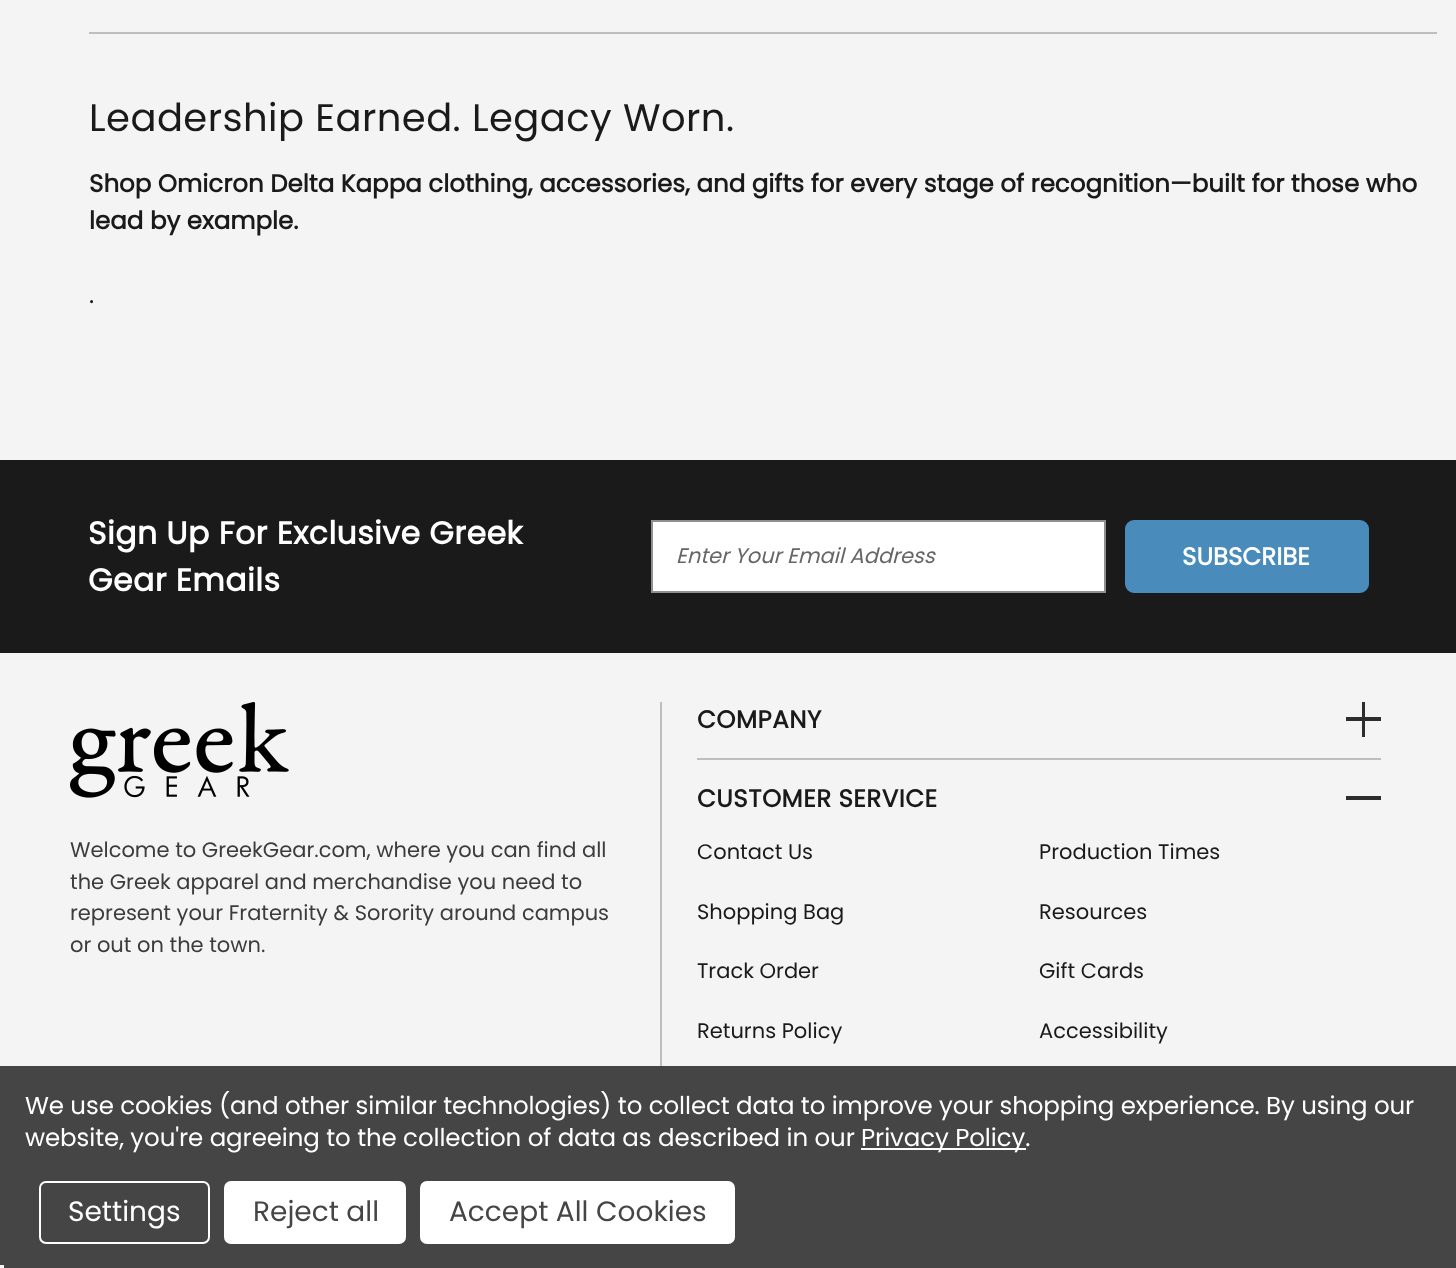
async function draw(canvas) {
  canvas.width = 1456;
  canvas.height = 1268;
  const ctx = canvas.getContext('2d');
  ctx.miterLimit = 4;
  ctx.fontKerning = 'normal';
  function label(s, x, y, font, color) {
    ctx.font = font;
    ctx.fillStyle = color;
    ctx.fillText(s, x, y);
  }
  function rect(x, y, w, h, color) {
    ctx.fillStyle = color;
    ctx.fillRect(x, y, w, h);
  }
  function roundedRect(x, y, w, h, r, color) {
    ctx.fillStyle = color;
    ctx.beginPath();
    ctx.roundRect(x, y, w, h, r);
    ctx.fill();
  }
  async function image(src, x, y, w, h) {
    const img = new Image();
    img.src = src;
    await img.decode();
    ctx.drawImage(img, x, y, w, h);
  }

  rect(0, 0, 1456, 1268, '#f4f4f4');
  rect(89, 32, 1348, 2, '#bebebe');
  ctx.letterSpacing = '0.45px';
  label('Leadership Earned. Legacy Worn.', 89, 131, '38.5px Poppins', '#1a1a1a');
  ctx.letterSpacing = '0px';
  label('Shop Omicron Delta Kappa clothing, accessories, and gifts for every stage of recognition—built for those who', 89, 192, 'bold 24.5px Poppins', '#1a1a1a');
  label('lead by example.', 89, 229, 'bold 24.5px Poppins', '#1a1a1a');
  label('.', 89, 303, '24.5px Poppins', '#1a1a1a');
  rect(0, 460, 1456, 193, '#1a1a1a');
  ctx.letterSpacing = '0.45px';
  label('Sign Up For Exclusive Greek', 88, 544, 'bold 31.5px Poppins', '#fff');
  label('Gear Emails', 88, 591, 'bold 31.5px Poppins', '#fff');
  ctx.beginPath();
  ctx.rect(652, 521, 453, 71);
  ctx.fill();
  ctx.strokeStyle = '#8f8f8f';
  ctx.lineWidth = 2;
  ctx.stroke();
  ctx.letterSpacing = '0px';
  label('Enter Your Email Address', 676, 563, 'italic 21px Poppins', '#666');
  ctx.fillStyle = '#498cbc';
  ctx.beginPath();
  ctx.roundRect(1126, 521, 242, 71, 8);
  ctx.fill();
  ctx.strokeStyle = '#498cbc';
  ctx.stroke();
  label('SUBSCRIBE', 1182, 565, 'bold 24.5px Poppins', '#fff');
  rect(697, 758, 684, 2, '#bebebe');
  ctx.letterSpacing = '0.45px';
  label('COMPANY', 697, 728, 'bold 24.5px Poppins', '#1a1a1a');
  rect(1362, 702, 3, 35, '#2d2d2d');
  rect(1346, 717, 35, 4, '#2d2d2d');
  rect(660, 702, 2, 364, '#bebebe');
  await image('assets/img1.png', 70, 702, 219, 96);
  ctx.letterSpacing = '0px';
  label('Welcome to GreekGear.com, where you can find all', 70, 857, '21px Poppins', '#3c3c3c');
  label('the Greek apparel and merchandise you need to', 70, 889, '21px Poppins', '#3c3c3c');
  label('represent your Fraternity & Sorority around campus', 70, 920, '21px Poppins', '#3c3c3c');
  label('or out on the town.', 70, 952, '21px Poppins', '#3c3c3c');
  ctx.letterSpacing = '0.45px';
  label('CUSTOMER SERVICE', 697, 807, 'bold 24.5px Poppins', '#1a1a1a');
  rect(1346, 796, 35, 4, '#2d2d2d');
  ctx.letterSpacing = '0px';
  label('Contact Us', 697, 859, '21px Poppins', '#1a1a1a');
  label('Shopping Bag', 697, 919, '21px Poppins', '#1a1a1a');
  label('Track Order', 697, 978, '21px Poppins', '#1a1a1a');
  label('Returns Policy', 697, 1038, '21px Poppins', '#1a1a1a');
  label('Production Times', 1039, 859, '21px Poppins', '#1a1a1a');
  label('Resources', 1039, 919, '21px Poppins', '#1a1a1a');
  label('Gift Cards', 1039, 978, '21px Poppins', '#1a1a1a');
  label('Accessibility', 1039, 1038, '21px Poppins', '#1a1a1a');
  rect(0, 1066, 1456, 202, '#454545');
  ctx.letterSpacing = '-0.09px';
  label('We use cookies (and other similar technologies) to collect data to improve your shopping experience. By using our', 25, 1114, '24.5px Poppins', '#fff');
  label('website, you\'re agreeing to the collection of data as described in our', 25, 1146, '24.5px Poppins', '#fff');
  rect(861, 1148, 165, 2, '#fff');
  label('Privacy Policy.', 861, 1146, '24.5px Poppins', '#fff');
  ctx.beginPath();
  ctx.roundRect(40, 1182, 169, 61, 6);
  ctx.strokeStyle = '#fff';
  ctx.stroke();
  ctx.letterSpacing = '0px';
  label('Settings', 68, 1221, '28px Poppins', '#fff');
  roundedRect(224, 1181, 182, 63, 7, '#fff');
  label('Reject all', 253, 1221, '28px Poppins', '#454545');
  roundedRect(420, 1181, 315, 63, 7, '#fff');
  label('Accept All Cookies', 449, 1221, '28px Poppins', '#454545');
  rect(0, 1265, 4, 3, '#f5f5f5');
}

draw(document.querySelector('canvas'));
